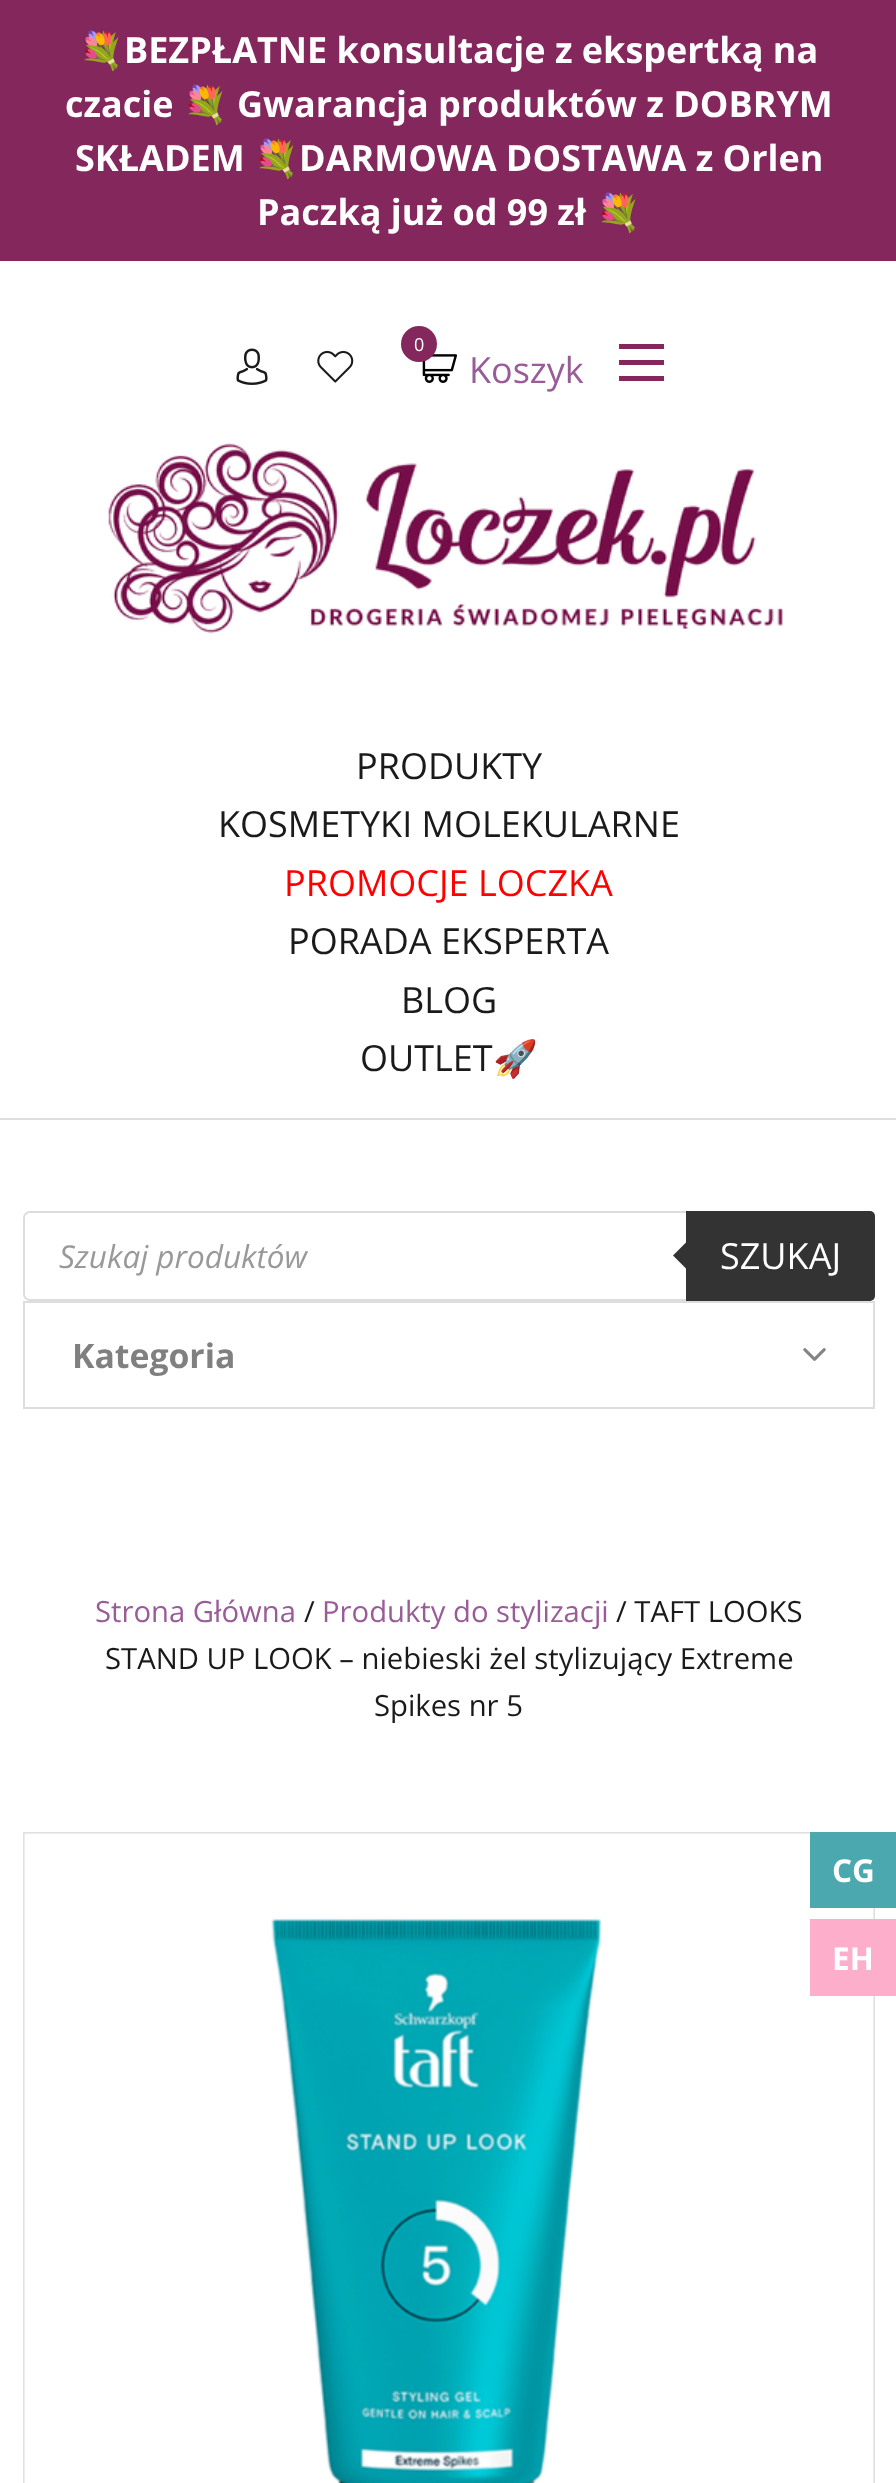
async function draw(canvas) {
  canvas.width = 896;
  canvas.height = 2483;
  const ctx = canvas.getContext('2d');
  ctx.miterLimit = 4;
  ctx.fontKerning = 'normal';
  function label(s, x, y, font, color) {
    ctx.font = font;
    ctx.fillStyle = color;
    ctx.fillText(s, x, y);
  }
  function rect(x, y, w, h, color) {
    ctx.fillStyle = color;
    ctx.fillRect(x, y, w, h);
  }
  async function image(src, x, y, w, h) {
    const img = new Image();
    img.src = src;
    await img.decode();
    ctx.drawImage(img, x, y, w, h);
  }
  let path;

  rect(0, 0, 896, 2483, '#fff');
  rect(0, 0, 896, 261, '#83275c');
  label('💐', 79, 63, 'bold 36px Noto Color Emoji', '#fff');
  label('BEZPŁATNE konsultacje z ekspertką na', 124, 63, 'bold 36px Open Sans', '#fff');
  label('czacie', 65, 117, 'bold 36px Open Sans', '#fff');
  label('💐', 183, 117, 'bold 36px Noto Color Emoji', '#fff');
  label('Gwarancja produktów z DOBRYM', 237, 117, 'bold 36px Open Sans', '#fff');
  label('SKŁADEM', 75, 171, 'bold 36px Open Sans', '#fff');
  label('💐', 254, 171, 'bold 36px Noto Color Emoji', '#fff');
  label('DARMOWA DOSTAWA z Orlen', 299, 171, 'bold 36px Open Sans', '#fff');
  label('Paczką już od 99 zł', 257, 225, 'bold 36px Open Sans', '#fff');
  label('💐', 596, 225, 'bold 36px Noto Color Emoji', '#fff');
  await image('assets/img1.png', 236, 348, 32, 37);
  await image('assets/img2.png', 317, 350, 37, 33);
  await image('assets/img3.png', 422, 354, 35, 29);
  ctx.fillStyle = '#83275c';
  ctx.beginPath();
  ctx.arc(419, 344, 18, 0, 2 * Math.PI);
  ctx.fill();
  label('0', 414, 351, '18px Open Sans', '#fff');
  label('Koszyk', 469, 383, '36px Open Sans', '#995c98');
  rect(619, 376, 45, 5, '#83275c');
  rect(619, 360, 45, 5, '#83275c');
  rect(619, 344, 45, 5, '#83275c');
  await image('assets/img4.png', 108, 443, 675, 191);
  rect(0, 1118, 896, 2, '#ddd');
  label('PRODUKTY', 356, 779, '36px Open Sans', '#1a1a1a');
  label('KOSMETYKI MOLEKULARNE', 218, 837, '36px Open Sans', '#1a1a1a');
  label('PROMOCJE LOCZKA', 284, 896, '36px Open Sans', '#f00');
  label('PORADA EKSPERTA', 288, 954, '36px Open Sans', '#1a1a1a');
  label('BLOG', 401, 1013, '36px Open Sans', '#1a1a1a');
  label('OUTLET', 360, 1071, '36px Open Sans', '#1a1a1a');
  label('🚀', 493, 1071, '36px Noto Color Emoji', '#1a1a1a');
  ctx.beginPath();
  ctx.roundRect(24, 1212, 850, 88, 6);
  ctx.strokeStyle = '#ddd';
  ctx.lineWidth = 2;
  ctx.stroke();
  label('Szukaj produktów', 59, 1268, 'italic 31.5px Open Sans', '#999');
  ctx.fillStyle = '#333';
  ctx.beginPath();
  ctx.roundRect(686, 1211, 189, 90, [0, 5, 5, 0]);
  ctx.fill();
  path = new Path2D('M691 1237.5V1273.5L673 1255.5Z');
  ctx.fill(path);
  label('SZUKAJ', 720, 1269, '36px Open Sans', '#fff');
  await image('assets/img5.png', 803, 1348, 23, 13);
  ctx.strokeRect(24, 1302, 850, 106);
  label('Kategoria', 72, 1368, 'bold 33.75px Open Sans', '#808080');
  label('Strona Główna', 95, 1622, '29.25px Open Sans', '#995c98');
  label('/', 304, 1622, '29.25px Open Sans', '#1a1a1a');
  label('Produkty do stylizacji', 322, 1622, '29.25px Open Sans', '#995c98');
  label('/ TAFT LOOKS', 616, 1622, '29.25px Open Sans', '#1a1a1a');
  label('STAND UP LOOK – niebieski żel stylizujący Extreme', 105, 1669, '29.25px Open Sans', '#1a1a1a');
  label('Spikes nr 5', 374, 1716, '29.25px Open Sans', '#1a1a1a');
  ctx.strokeStyle = '#e1e1e1';
  ctx.strokeRect(24, 1833, 850, 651);
  await image('assets/img6.png', 24, 1833, 850, 650);
  rect(810, 1832, 86, 76, '#4ca8af');
  label('CG', 832, 1882, 'bold 31.5px Open Sans', '#fff');
  rect(810, 1919, 86, 77, '#fdaecb');
  label('EH', 832, 1970, 'bold 31.5px Open Sans', '#fff');
}

draw(document.querySelector('canvas'));
